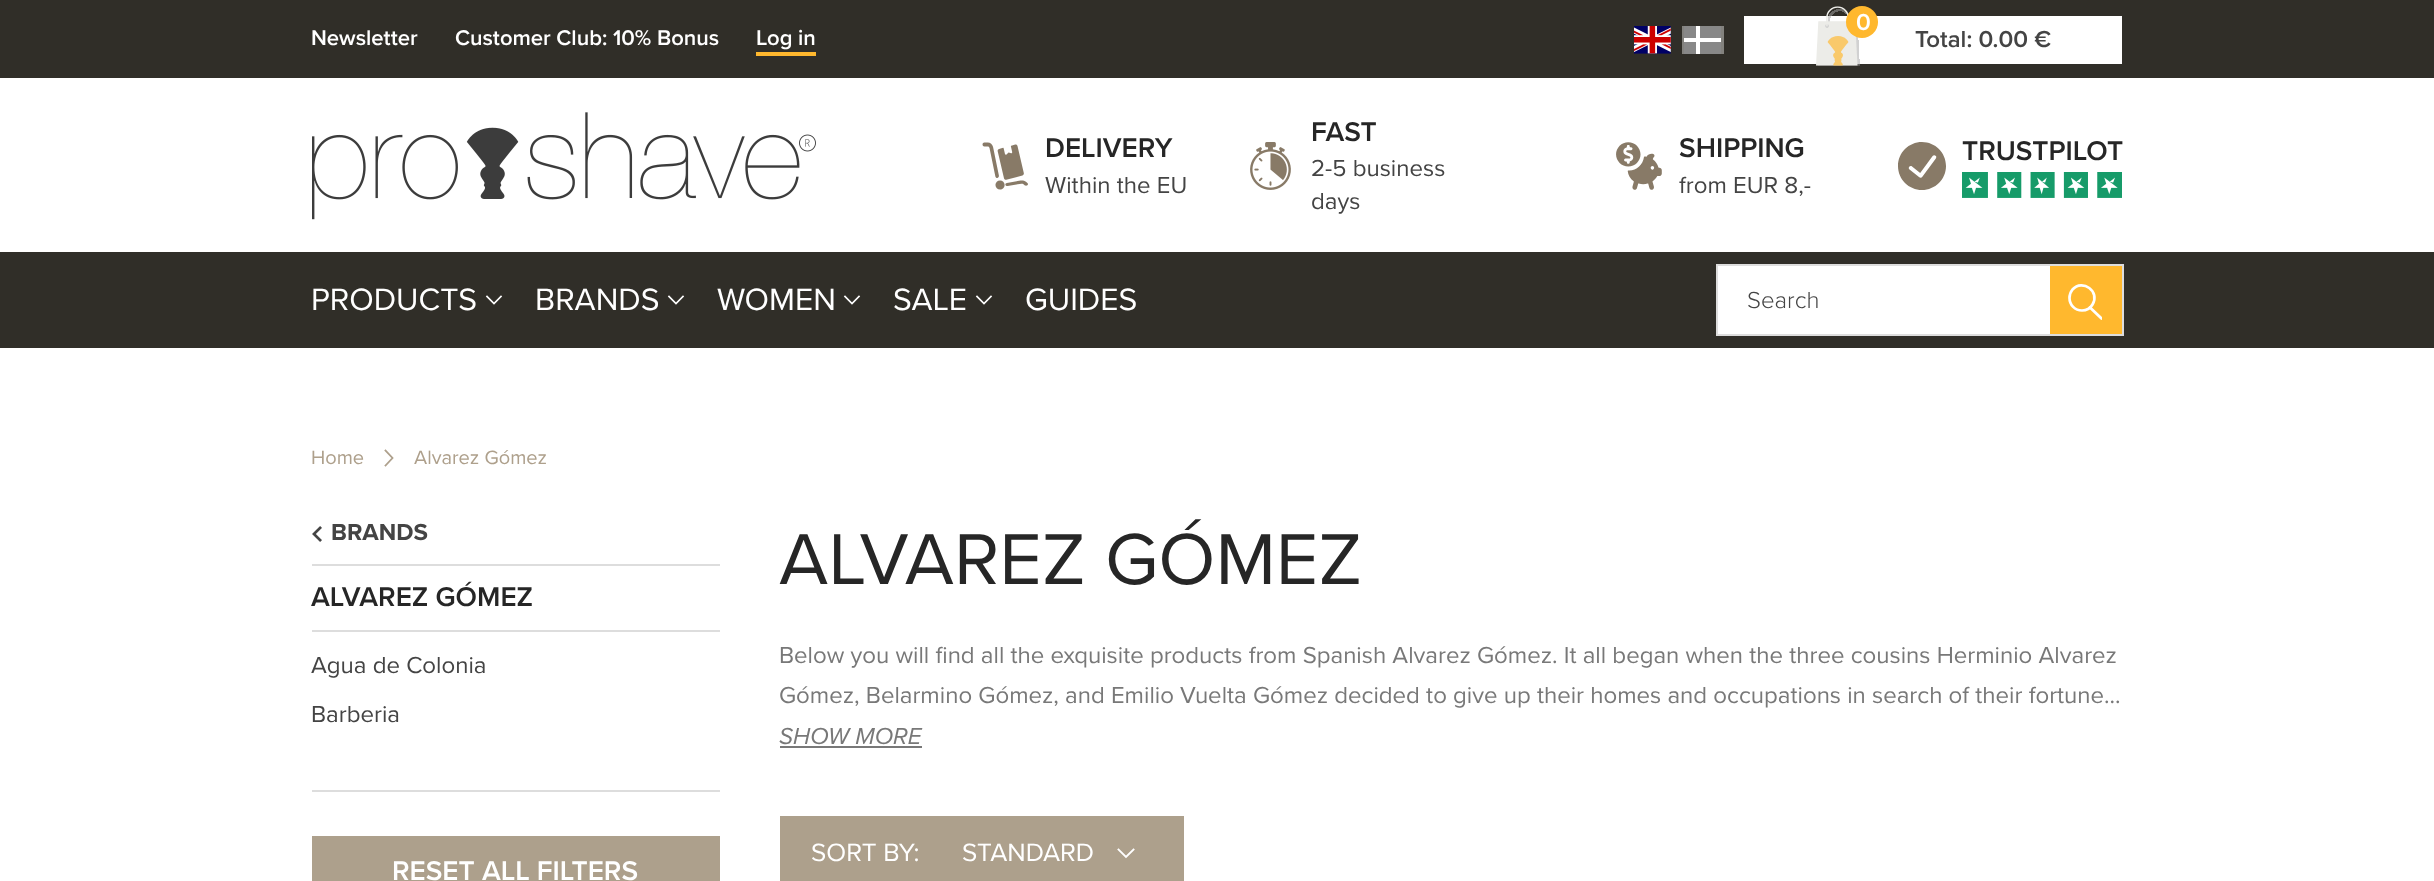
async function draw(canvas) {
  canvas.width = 2434;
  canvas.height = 881;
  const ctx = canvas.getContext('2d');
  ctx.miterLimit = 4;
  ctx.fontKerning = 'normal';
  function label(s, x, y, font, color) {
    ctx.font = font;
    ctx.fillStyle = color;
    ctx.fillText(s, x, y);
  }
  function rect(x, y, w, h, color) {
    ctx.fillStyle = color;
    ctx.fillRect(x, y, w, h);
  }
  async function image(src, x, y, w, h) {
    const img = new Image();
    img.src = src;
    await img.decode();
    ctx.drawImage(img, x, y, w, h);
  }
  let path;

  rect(0, 0, 2434, 881, '#fff');
  rect(0, 0, 2434, 78, '#302e28');
  rect(1682, 26, 42, 28, '#83827e');
  label('Newsletter', 311, 45, '600 22px Proxima Nova', '#fff');
  label('Customer Club: 10% Bonus', 455, 45, '600 22px Proxima Nova', '#fff');
  label('Log in', 756, 45, '600 22px Proxima Nova', '#fff');
  rect(756, 52, 60, 4, '#ffb82e');
  await image('assets/img1.png', 1634, 26, 37, 28);
  rect(1684, 26, 37, 28, '#888');
  rect(1696, 26, 4, 28, '#fff');
  rect(1684, 38, 37, 4, '#fff');
  rect(1744, 16, 378, 48, '#fff');
  await image('assets/img2.png', 1816, 6, 44, 60);
  ctx.fillStyle = '#ffb82e';
  ctx.beginPath();
  ctx.arc(1862, 22, 16, 0, 2 * Math.PI);
  ctx.fill();
  label('0', 1856, 30, '600 24px Proxima Nova', '#fff');
  label('Total: 0.00 €', 1915, 47, '600 24px Proxima Nova', '#444');
  await image('assets/img3.png', 312, 112, 504, 108);
  await image('assets/img4.png', 982, 142, 46, 48);
  label('DELIVERY', 1045, 157, '600 28px Proxima Nova', '#262626');
  label('Within the EU', 1045, 193, '24px Proxima Nova', '#444');
  await image('assets/img5.png', 1250, 142, 41, 48);
  label('FAST', 1311, 141, '600 28px Proxima Nova', '#262626');
  label('2-5 business', 1311, 176, '24px Proxima Nova', '#444');
  label('days', 1311, 209, '24px Proxima Nova', '#444');
  await image('assets/img6.png', 1616, 142, 46, 48);
  label('SHIPPING', 1679, 157, '600 28px Proxima Nova', '#262626');
  label('from EUR 8,-', 1679, 193, '24px Proxima Nova', '#444');
  await image('assets/img7.png', 1898, 142, 48, 48);
  label('TRUSTPILOT', 1962, 160, '600 28px Proxima Nova', '#262626');
  await image('assets/img8.png', 1962, 172, 160, 26);
  rect(0, 252, 2434, 96, '#302e28');
  label('PRODUCTS', 311, 310, '32px Proxima Nova', '#fff');
  path = new Path2D('M501 296.5L494 303.5L487 296.5');
  ctx.strokeStyle = '#fff';
  ctx.lineWidth = 1.7;
  ctx.lineCap = 'square';
  ctx.stroke(path);
  label('BRANDS', 535, 310, '32px Proxima Nova', '#fff');
  path = new Path2D('M683 296.5L676 303.5L669 296.5');
  ctx.stroke(path);
  label('WOMEN', 717, 310, '32px Proxima Nova', '#fff');
  path = new Path2D('M859 296.5L852 303.5L845 296.5');
  ctx.stroke(path);
  label('SALE', 893, 310, '32px Proxima Nova', '#fff');
  path = new Path2D('M991 296.5L984 303.5L977 296.5');
  ctx.stroke(path);
  label('GUIDES', 1025, 310, '32px Proxima Nova', '#fff');
  rect(1718, 266, 332, 68, '#fff');
  ctx.strokeStyle = '#ddd';
  ctx.lineWidth = 2;
  ctx.strokeRect(1717, 265, 406, 70);
  label('Search', 1747, 308, '300 24px Proxima Nova', '#444');
  rect(2050, 266, 72, 68, '#ffb82e');
  path = new Path2D('M2082 310.5C2086.5 310.5 2090.5 308 2092.5 304.5C2100.5 291.5 2082.5 278.5 2072.5 289.5C2070.5 292 2069.5 295 2069.5 298C2069.5 305 2075 310.5 2082 310.5Z');
  ctx.strokeStyle = '#fff';
  ctx.lineWidth = 2.7;
  ctx.lineCap = 'round';
  ctx.lineJoin = 'round';
  ctx.stroke(path);
  ctx.save();
  ctx.beginPath();
  ctx.rect(2068, 284, 34, 36);
  ctx.clip();
  path = new Path2D('M2090 307.5L2101.5 318.5');
  ctx.stroke(path);
  ctx.restore();
  label('Home', 311, 464, '20px Proxima Nova', '#aea08c');
  path = new Path2D('M385.5 465.5L392.5 458L385.5 450.5');
  ctx.strokeStyle = '#aea08c';
  ctx.lineWidth = 1.8;
  ctx.lineCap = 'square';
  ctx.lineJoin = 'miter';
  ctx.stroke(path);
  label('Alvarez Gómez', 414, 464, '20px Proxima Nova', '#aea08c');
  rect(312, 564, 408, 2, '#ddd');
  await image('assets/img9.png', 312, 526, 10, 16);
  label('BRANDS', 331, 540, 'bold 24px Proxima Nova', '#444');
  rect(312, 630, 408, 2, '#ddd');
  label('ALVAREZ GÓMEZ', 311, 606, '600 28px Proxima Nova', '#262626');
  rect(312, 790, 408, 2, '#ddd');
  label('Agua de Colonia', 311, 673, '24px Proxima Nova', '#444');
  label('Barberia', 311, 722, '24px Proxima Nova', '#444');
  rect(312, 836, 408, 45, '#ada08c');
  label('RESET ALL FILTERS', 392, 880, '600 28px Proxima Nova', '#fff');
  label('ALVAREZ GÓMEZ', 779, 584, '74.75px Proxima Nova', '#262626');
  label('Below you will find all the exquisite products from Spanish Alvarez Gómez. It all began when the three cousins Herminio Alvarez', 779, 663, '24px Proxima Nova', '#787878');
  label('Gómez, Belarmino Gómez, and Emilio Vuelta Gómez decided to give up their homes and occupations in search of their fortune...', 779, 703, '24px Proxima Nova', '#787878');
  label('SHOW MORE', 779, 744, 'italic 24px Proxima Nova', '#787878');
  rect(780, 746, 142, 2, '#787878');
  rect(780, 816, 404, 65, '#ada08c');
  label('SORT BY:', 811, 861, '26px Proxima Nova', '#fff');
  label('STANDARD', 962, 861, '26px Proxima Nova', '#fff');
  path = new Path2D('M1133.5 849.5L1126 857L1118.5 849.5');
  ctx.strokeStyle = '#fff';
  ctx.lineWidth = 1.9;
  ctx.stroke(path);
}

draw(document.querySelector('canvas'));
